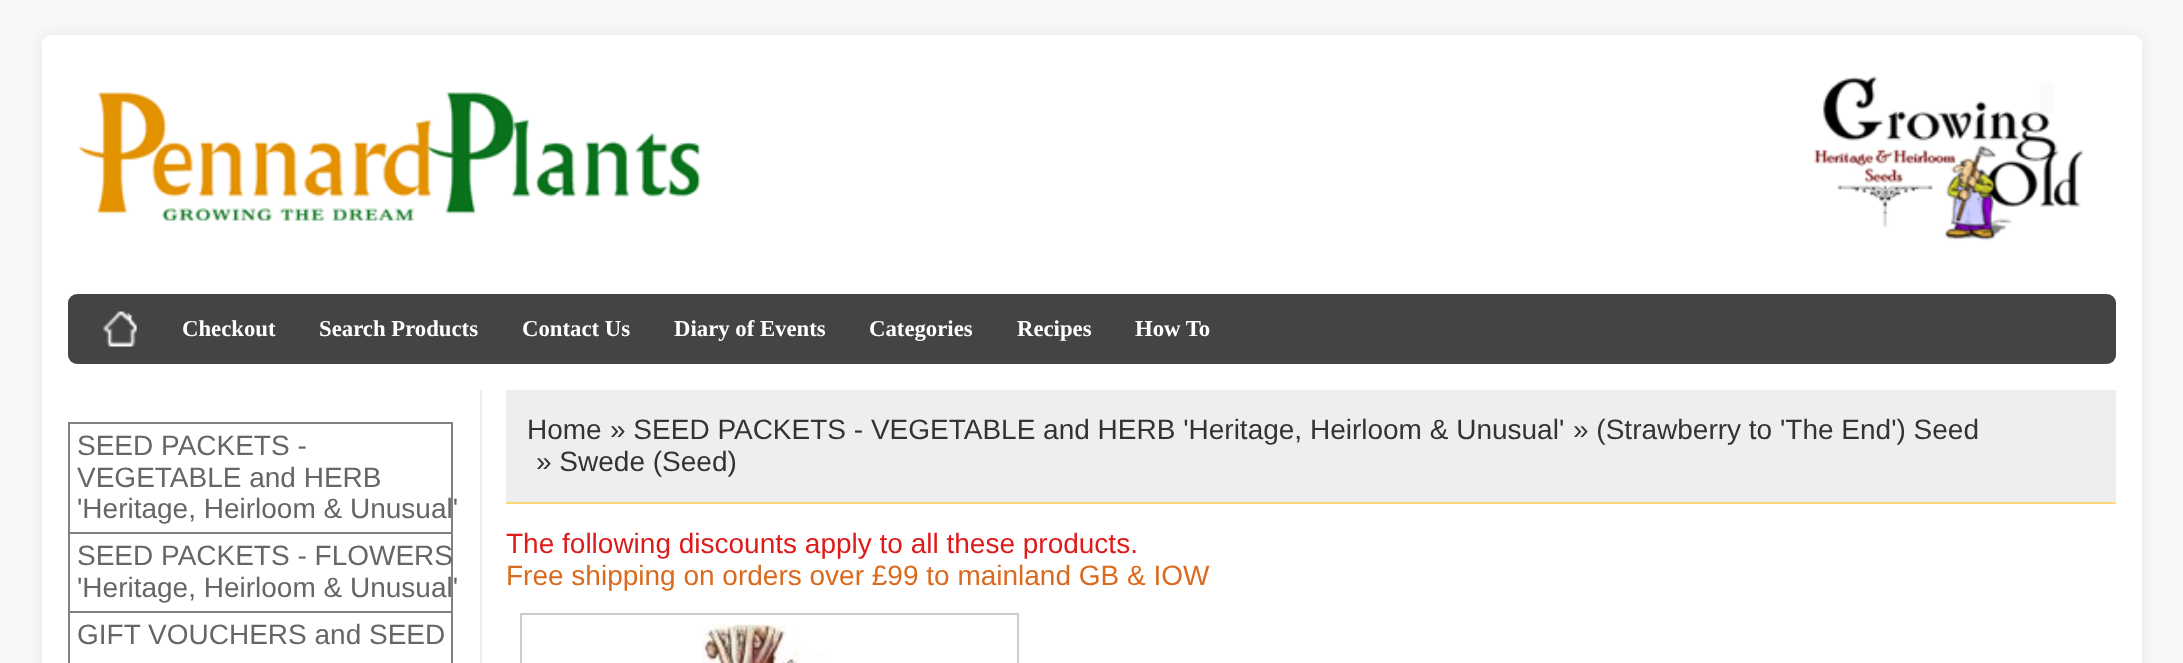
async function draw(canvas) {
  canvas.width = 2183;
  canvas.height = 663;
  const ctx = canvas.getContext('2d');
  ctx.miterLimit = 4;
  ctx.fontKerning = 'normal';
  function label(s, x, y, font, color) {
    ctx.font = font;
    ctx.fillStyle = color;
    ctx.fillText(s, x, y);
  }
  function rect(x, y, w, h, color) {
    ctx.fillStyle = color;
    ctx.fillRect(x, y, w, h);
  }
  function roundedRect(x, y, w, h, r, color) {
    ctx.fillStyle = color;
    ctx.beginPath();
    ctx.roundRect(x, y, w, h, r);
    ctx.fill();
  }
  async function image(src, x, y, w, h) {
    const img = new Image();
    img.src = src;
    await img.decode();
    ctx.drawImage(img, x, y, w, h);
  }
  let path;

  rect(0, 0, 2183, 663, '#f8f8fa');
  ctx.fillStyle = '#00000014';
  ctx.filter = 'blur(7px)';
  ctx.beginPath();
  ctx.roundRect(42, 35, 2100, 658, 9);
  ctx.fill();
  ctx.filter = 'none';
  ctx.fillStyle = '#fff';
  path = new Path2D('M51 35H2133C2138 35 2142 39 2142 44V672H42V44C42 39 46 35 51 35Z');
  ctx.fill(path);
  await image('assets/img1.png', 78, 92, 623, 129);
  await image('assets/img2.png', 1814, 76, 270, 165);
  roundedRect(68, 294, 2048, 70, 9, '#444');
  await image('assets/img3.png', 102, 311, 35, 36);
  label('Checkout', 182, 336, 'bold 22.75px Liberation Serif', '#fff');
  label('Search Products', 319, 336, 'bold 22.75px Liberation Serif', '#fff');
  label('Contact Us', 522, 336, 'bold 22.75px Liberation Serif', '#fff');
  label('Diary of Events', 674, 336, 'bold 22.75px Liberation Serif', '#fff');
  label('Categories', 869, 336, 'bold 22.75px Liberation Serif', '#fff');
  label('Recipes', 1017, 336, 'bold 22.75px Liberation Serif', '#fff');
  label('How To', 1135, 336, 'bold 22.75px Liberation Serif', '#fff');
  rect(480, 390, 2, 273, '#eee');
  ctx.strokeStyle = '#808080';
  ctx.lineWidth = 2;
  ctx.strokeRect(69, 423, 383, 110);
  label('SEED PACKETS -', 77, 455, '28px Liberation Sans', '#666');
  label('VEGETABLE and HERB', 77, 487, '28px Liberation Sans', '#666');
  label('\'Heritage, Heirloom & Unusual\'', 77, 518, '28px Liberation Sans', '#666');
  ctx.strokeRect(69, 533, 383, 79);
  label('SEED PACKETS - FLOWERS', 77, 565, '28px Liberation Sans', '#666');
  label('\'Heritage, Heirloom & Unusual\'', 77, 597, '28px Liberation Sans', '#666');
  ctx.strokeRect(69, 612, 383, 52);
  label('GIFT VOUCHERS and SEED', 77, 644, '28px Liberation Sans', '#666');
  rect(506, 390, 1610, 112, '#eee');
  rect(506, 502, 1610, 2, '#fed778');
  label('Home', 527, 439, '28px Liberation Sans', '#333');
  label('» SEED PACKETS - VEGETABLE and HERB \'Heritage, Heirloom & Unusual\'', 610, 439, '28px Liberation Sans', '#333');
  label('» (Strawberry to \'The End\') Seed', 1573, 439, '28px Liberation Sans', '#333');
  label('» Swede (Seed)', 536, 471, '28px Liberation Sans', '#333');
  label('The following discounts apply to all these products.', 506, 553, '28px Liberation Sans', '#df1a1a');
  label('Free shipping on orders over £99 to mainland GB & IOW', 506, 585, '28px Liberation Sans', '#da6a1e');
  ctx.strokeStyle = '#ccc';
  ctx.strokeRect(521, 614, 497, 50);
  await image('assets/img4.png', 702, 624, 124, 39);
}

draw(document.querySelector('canvas'));
